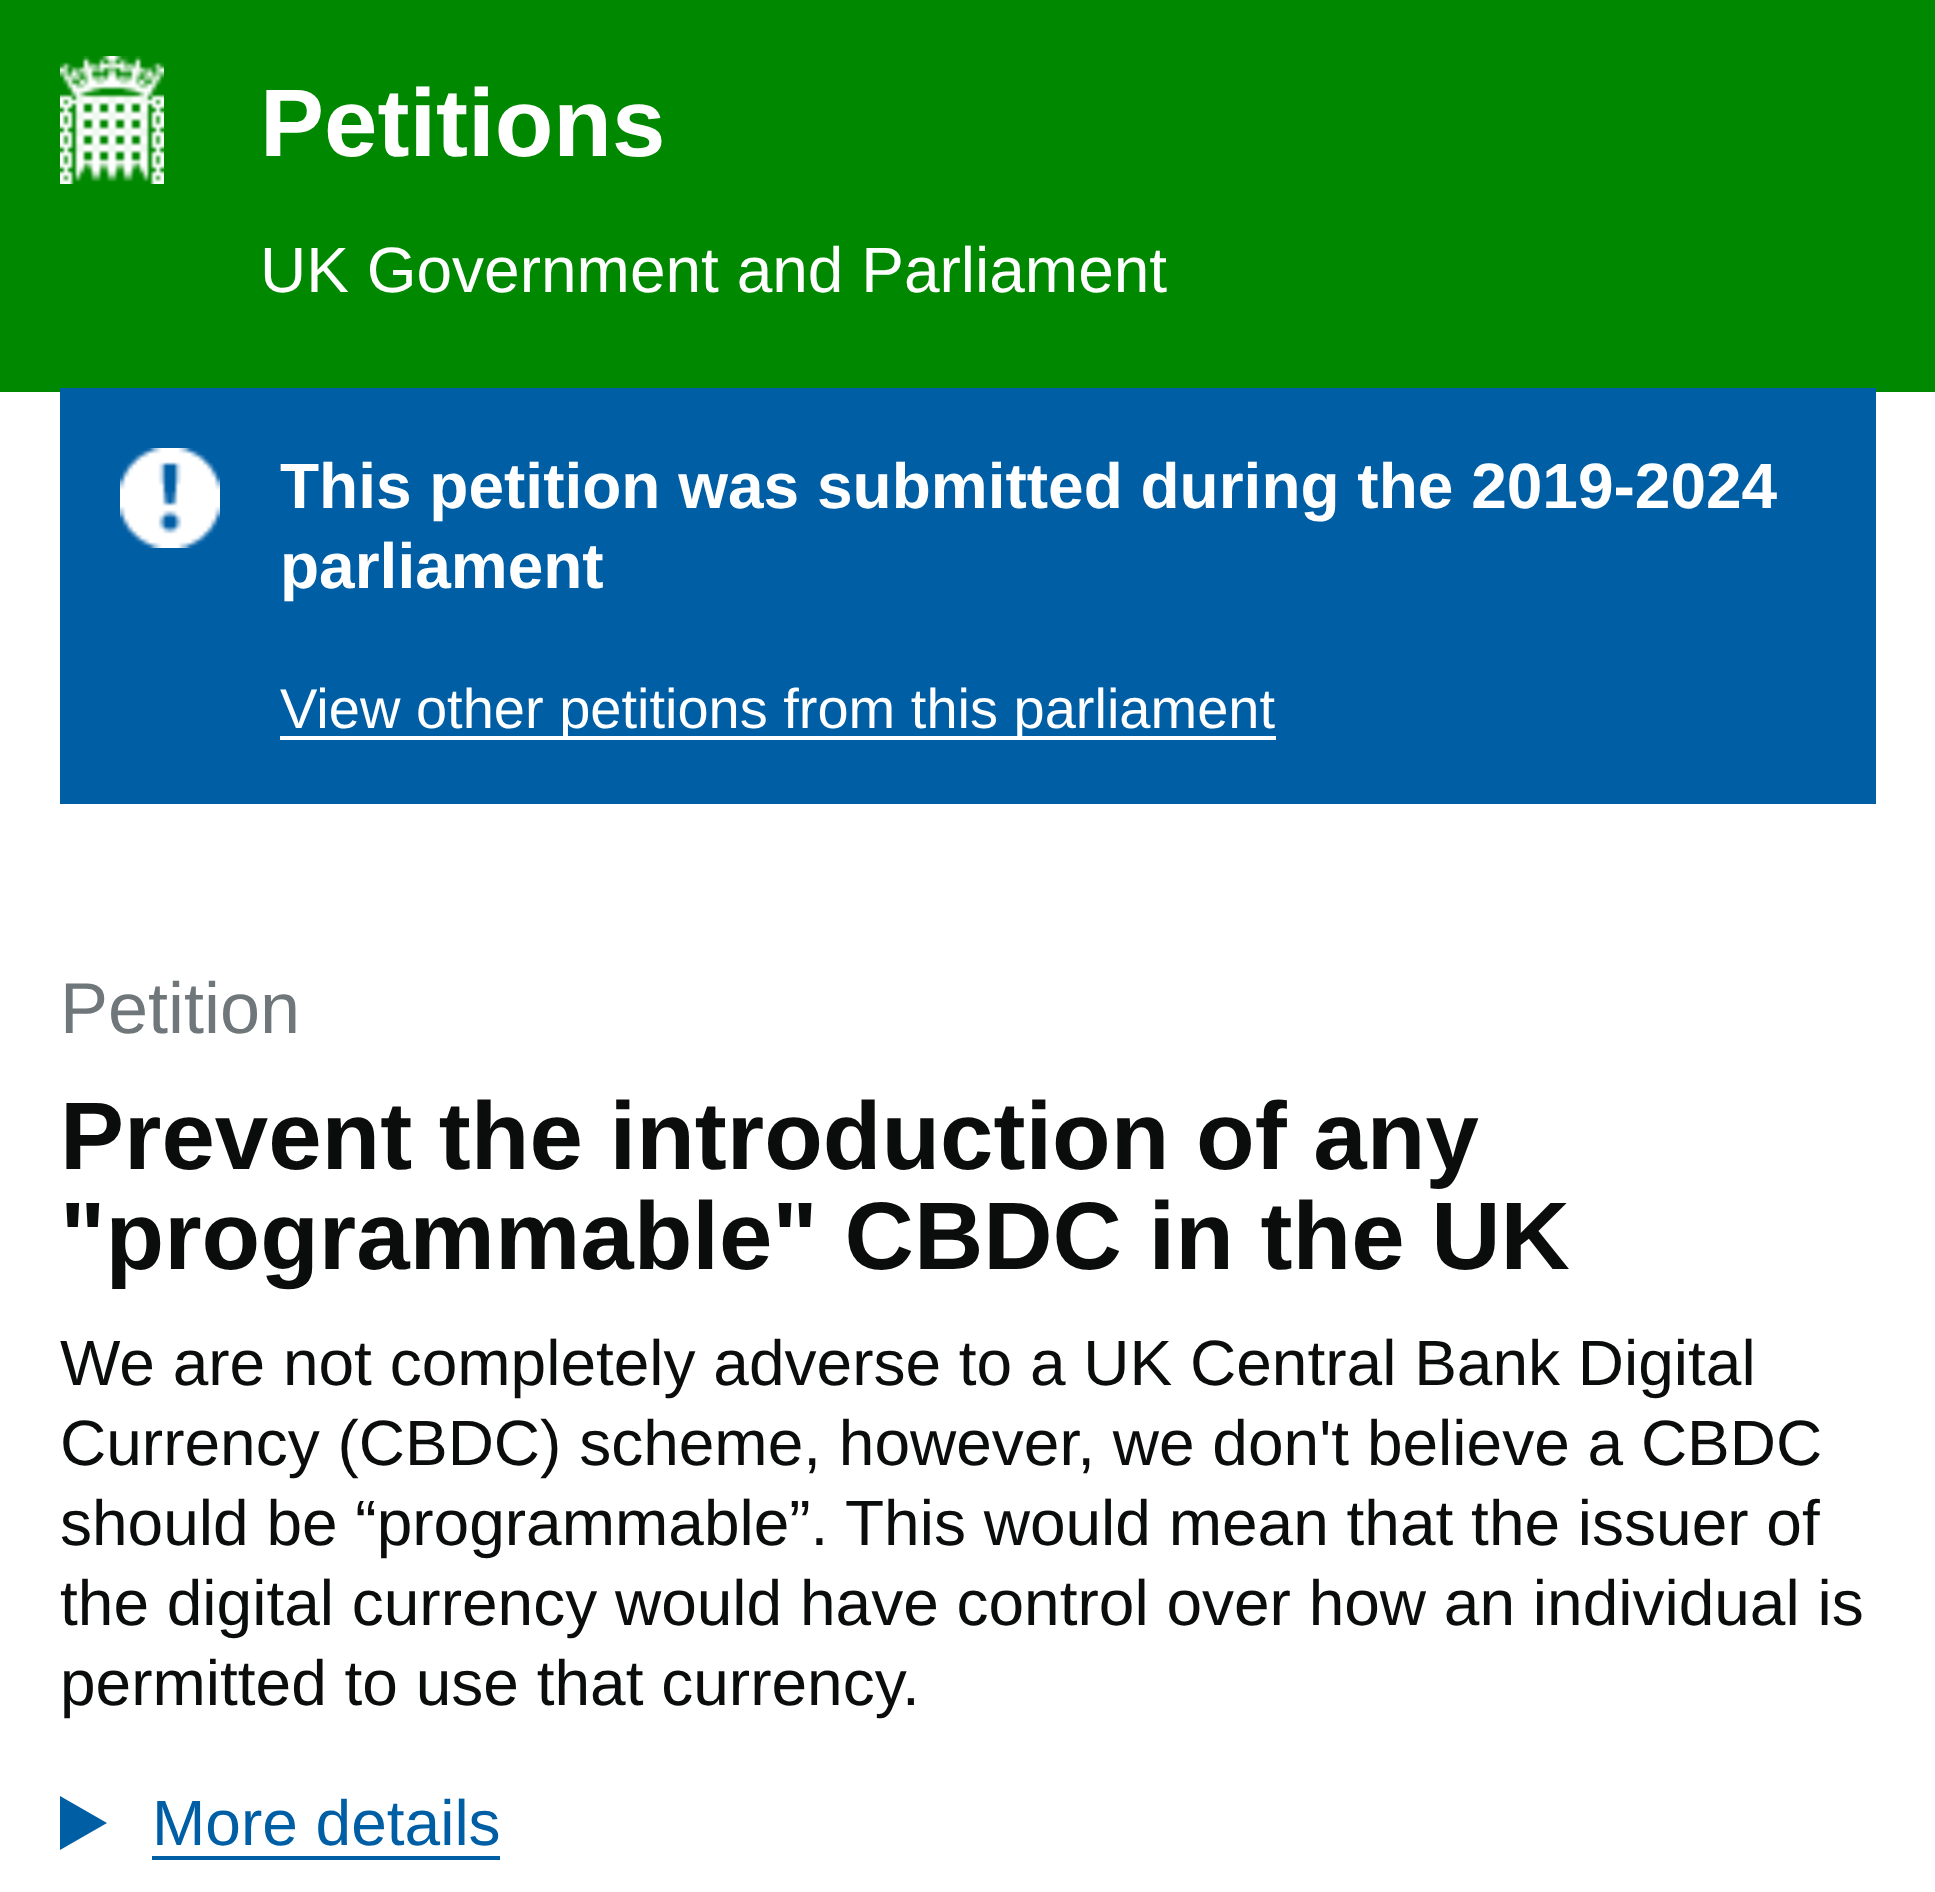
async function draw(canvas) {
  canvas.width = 1935;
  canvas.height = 1892;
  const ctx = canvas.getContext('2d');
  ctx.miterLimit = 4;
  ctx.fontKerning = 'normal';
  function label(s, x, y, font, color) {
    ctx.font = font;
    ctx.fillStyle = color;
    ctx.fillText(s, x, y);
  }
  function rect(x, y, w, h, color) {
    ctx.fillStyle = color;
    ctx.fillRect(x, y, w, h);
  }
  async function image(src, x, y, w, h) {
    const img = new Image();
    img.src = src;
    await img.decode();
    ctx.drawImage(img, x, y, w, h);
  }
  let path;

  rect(0, 0, 1935, 1892, '#fff');
  rect(0, 0, 1935, 392, '#080');
  await image('assets/img1.png', 60, 56, 104, 128);
  label('Petitions', 260, 156, 'bold 96px Liberation Sans', '#fff');
  label('UK Government and Parliament', 260, 292, '64px Liberation Sans', '#fff');
  rect(60, 388, 1816, 416, '#005ea5');
  await image('assets/img2.png', 120, 448, 100, 100);
  label('This petition was submitted during the 2019-2024', 280, 508, 'bold 64px Liberation Sans', '#fff');
  label('parliament', 280, 588, 'bold 64px Liberation Sans', '#fff');
  rect(280, 736, 996, 4, '#fff');
  label('View other petitions from this parliament', 280, 728, '56px Liberation Sans', '#fff');
  label('Petition', 60, 1033, '72px Liberation Sans', '#6f777b');
  label('Prevent the introduction of any', 60, 1169, 'bold 96px Liberation Sans', '#0b0c0c');
  label('"programmable" CBDC in the UK', 60, 1269, 'bold 96px Liberation Sans', '#0b0c0c');
  label('We are not completely adverse to a UK Central Bank Digital', 60, 1385, '64px Liberation Sans', '#0b0c0c');
  label('Currency (CBDC) scheme, however, we don\'t believe a CBDC', 60, 1465, '64px Liberation Sans', '#0b0c0c');
  label('should be “programmable”. This would mean that the issuer of', 60, 1545, '64px Liberation Sans', '#0b0c0c');
  label('the digital currency would have control over how an individual is', 60, 1625, '64px Liberation Sans', '#0b0c0c');
  label('permitted to use that currency.', 60, 1705, '64px Liberation Sans', '#0b0c0c');
  ctx.fillStyle = '#005ea5';
  path = new Path2D('M60 1796V1850L107 1823Z');
  ctx.fill(path);
  label('More details', 152, 1845, '64px Liberation Sans', '#005ea5');
  rect(152, 1856, 348, 4, '#005ea5');
}

draw(document.querySelector('canvas'));
